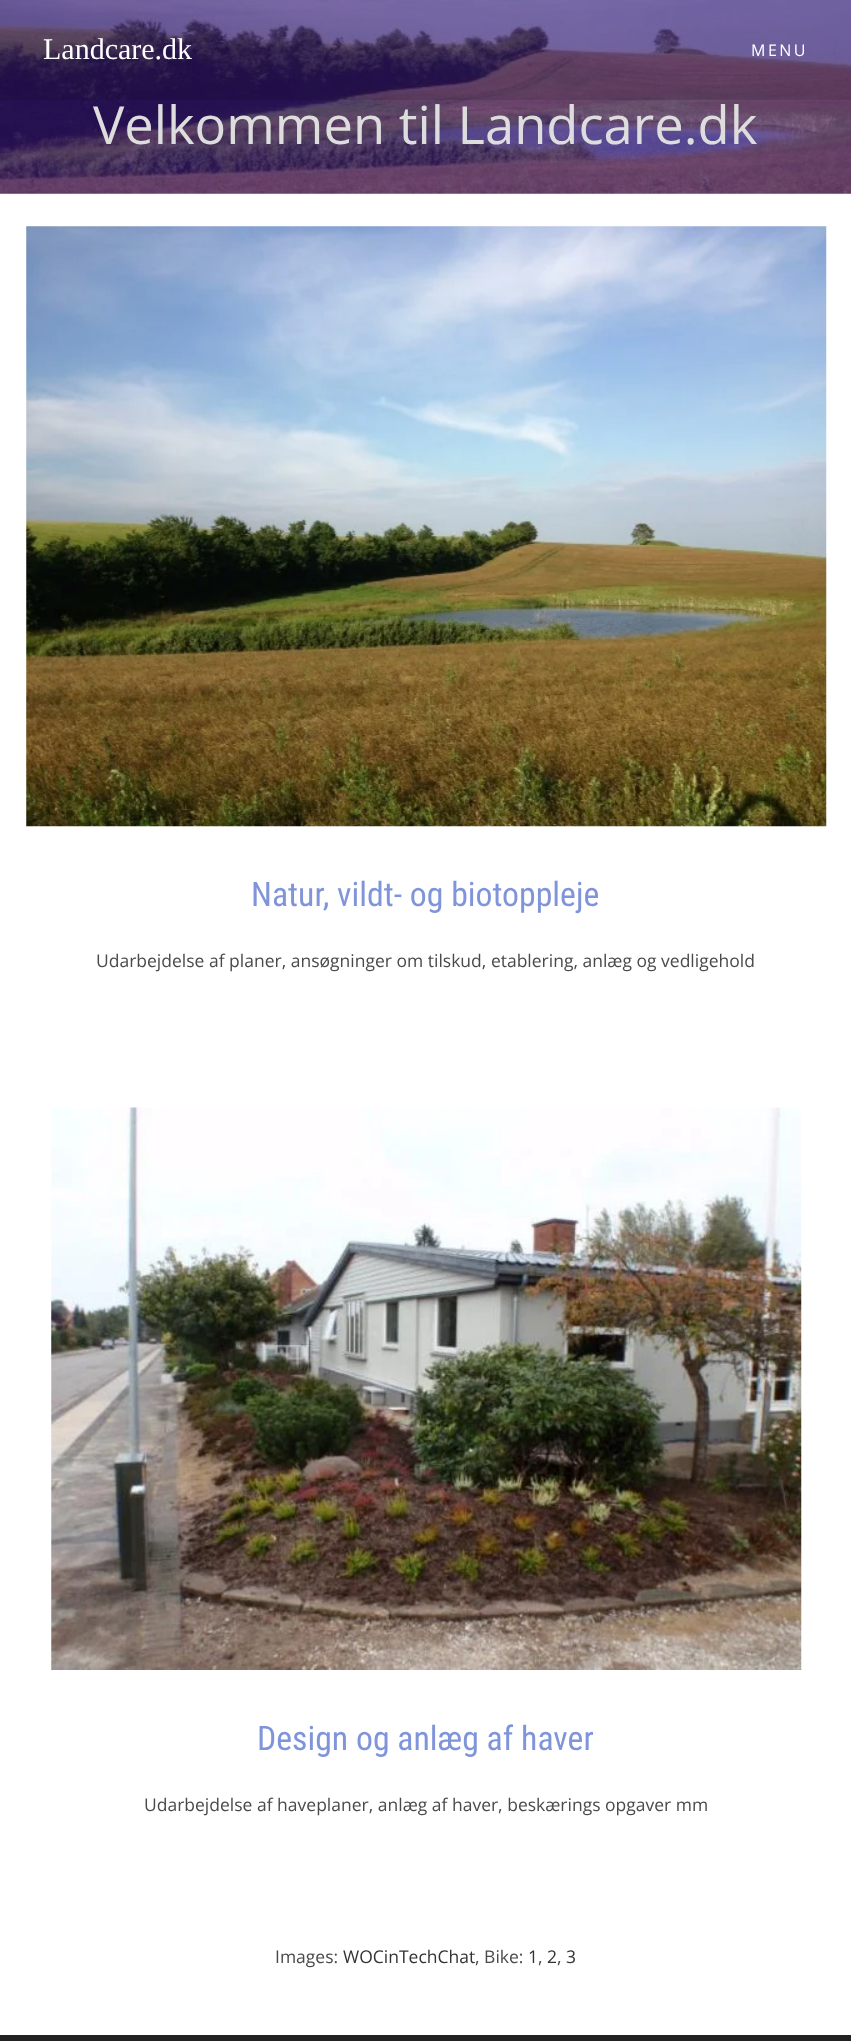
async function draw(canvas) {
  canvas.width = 851;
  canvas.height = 2041;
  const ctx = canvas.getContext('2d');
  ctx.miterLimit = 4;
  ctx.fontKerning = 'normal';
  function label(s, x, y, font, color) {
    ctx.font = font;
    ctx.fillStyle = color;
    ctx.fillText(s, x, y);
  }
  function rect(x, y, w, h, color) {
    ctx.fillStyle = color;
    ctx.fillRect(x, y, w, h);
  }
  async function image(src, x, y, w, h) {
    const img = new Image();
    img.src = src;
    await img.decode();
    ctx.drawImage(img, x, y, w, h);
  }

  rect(0, 0, 851, 2041, '#fff');
  await image('assets/img1.png', 0, 0, 851, 194);
  rect(0, 0, 851, 100, '#0a0a0a21');
  label('Landcare.dk', 43, 59, '30px Liberation Serif', '#fff');
  ctx.letterSpacing = '2.5px';
  label('MENU', 751, 56, '16px Open Sans', '#fff');
  ctx.letterSpacing = '0px';
  label('Velkommen til Landcare.dk', 93, 144, '52.5px Open Sans', '#ddd');
  await image('assets/img2.png', 26, 226, 801, 601);
  label('Natur, vildt- og biotoppleje', 251, 906, '33.75px Roboto Condensed', '#8095d9');
  label('Udarbejdelse af planer, ansøgninger om tilskud, etablering, anlæg og vedligehold', 96, 967, '17.5px Open Sans', '#4a4a4a');
  await image('assets/img3.png', 51, 1107, 751, 563);
  label('Design og anlæg af haver', 257, 1750, '33.75px Roboto Condensed', '#8095d9');
  label('Udarbejdelse af haveplaner, anlæg af haver, beskærings opgaver mm', 144, 1811, '17.5px Open Sans', '#4a4a4a');
  label('Images:', 275, 1963, '17.5px Open Sans', '#4a4a4a');
  label('WOCinTechChat', 343, 1963, '17.5px Open Sans', '#333');
  label(', Bike:', 475, 1963, '17.5px Open Sans', '#4a4a4a');
  label('1', 528, 1963, '17.5px Open Sans', '#333');
  label(',', 538, 1963, '17.5px Open Sans', '#4a4a4a');
  label('2', 547, 1963, '17.5px Open Sans', '#333');
  label(',', 557, 1963, '17.5px Open Sans', '#4a4a4a');
  label('3', 566, 1963, '17.5px Open Sans', '#333');
  rect(0, 2035, 851, 6, '#222');
}

draw(document.querySelector('canvas'));
